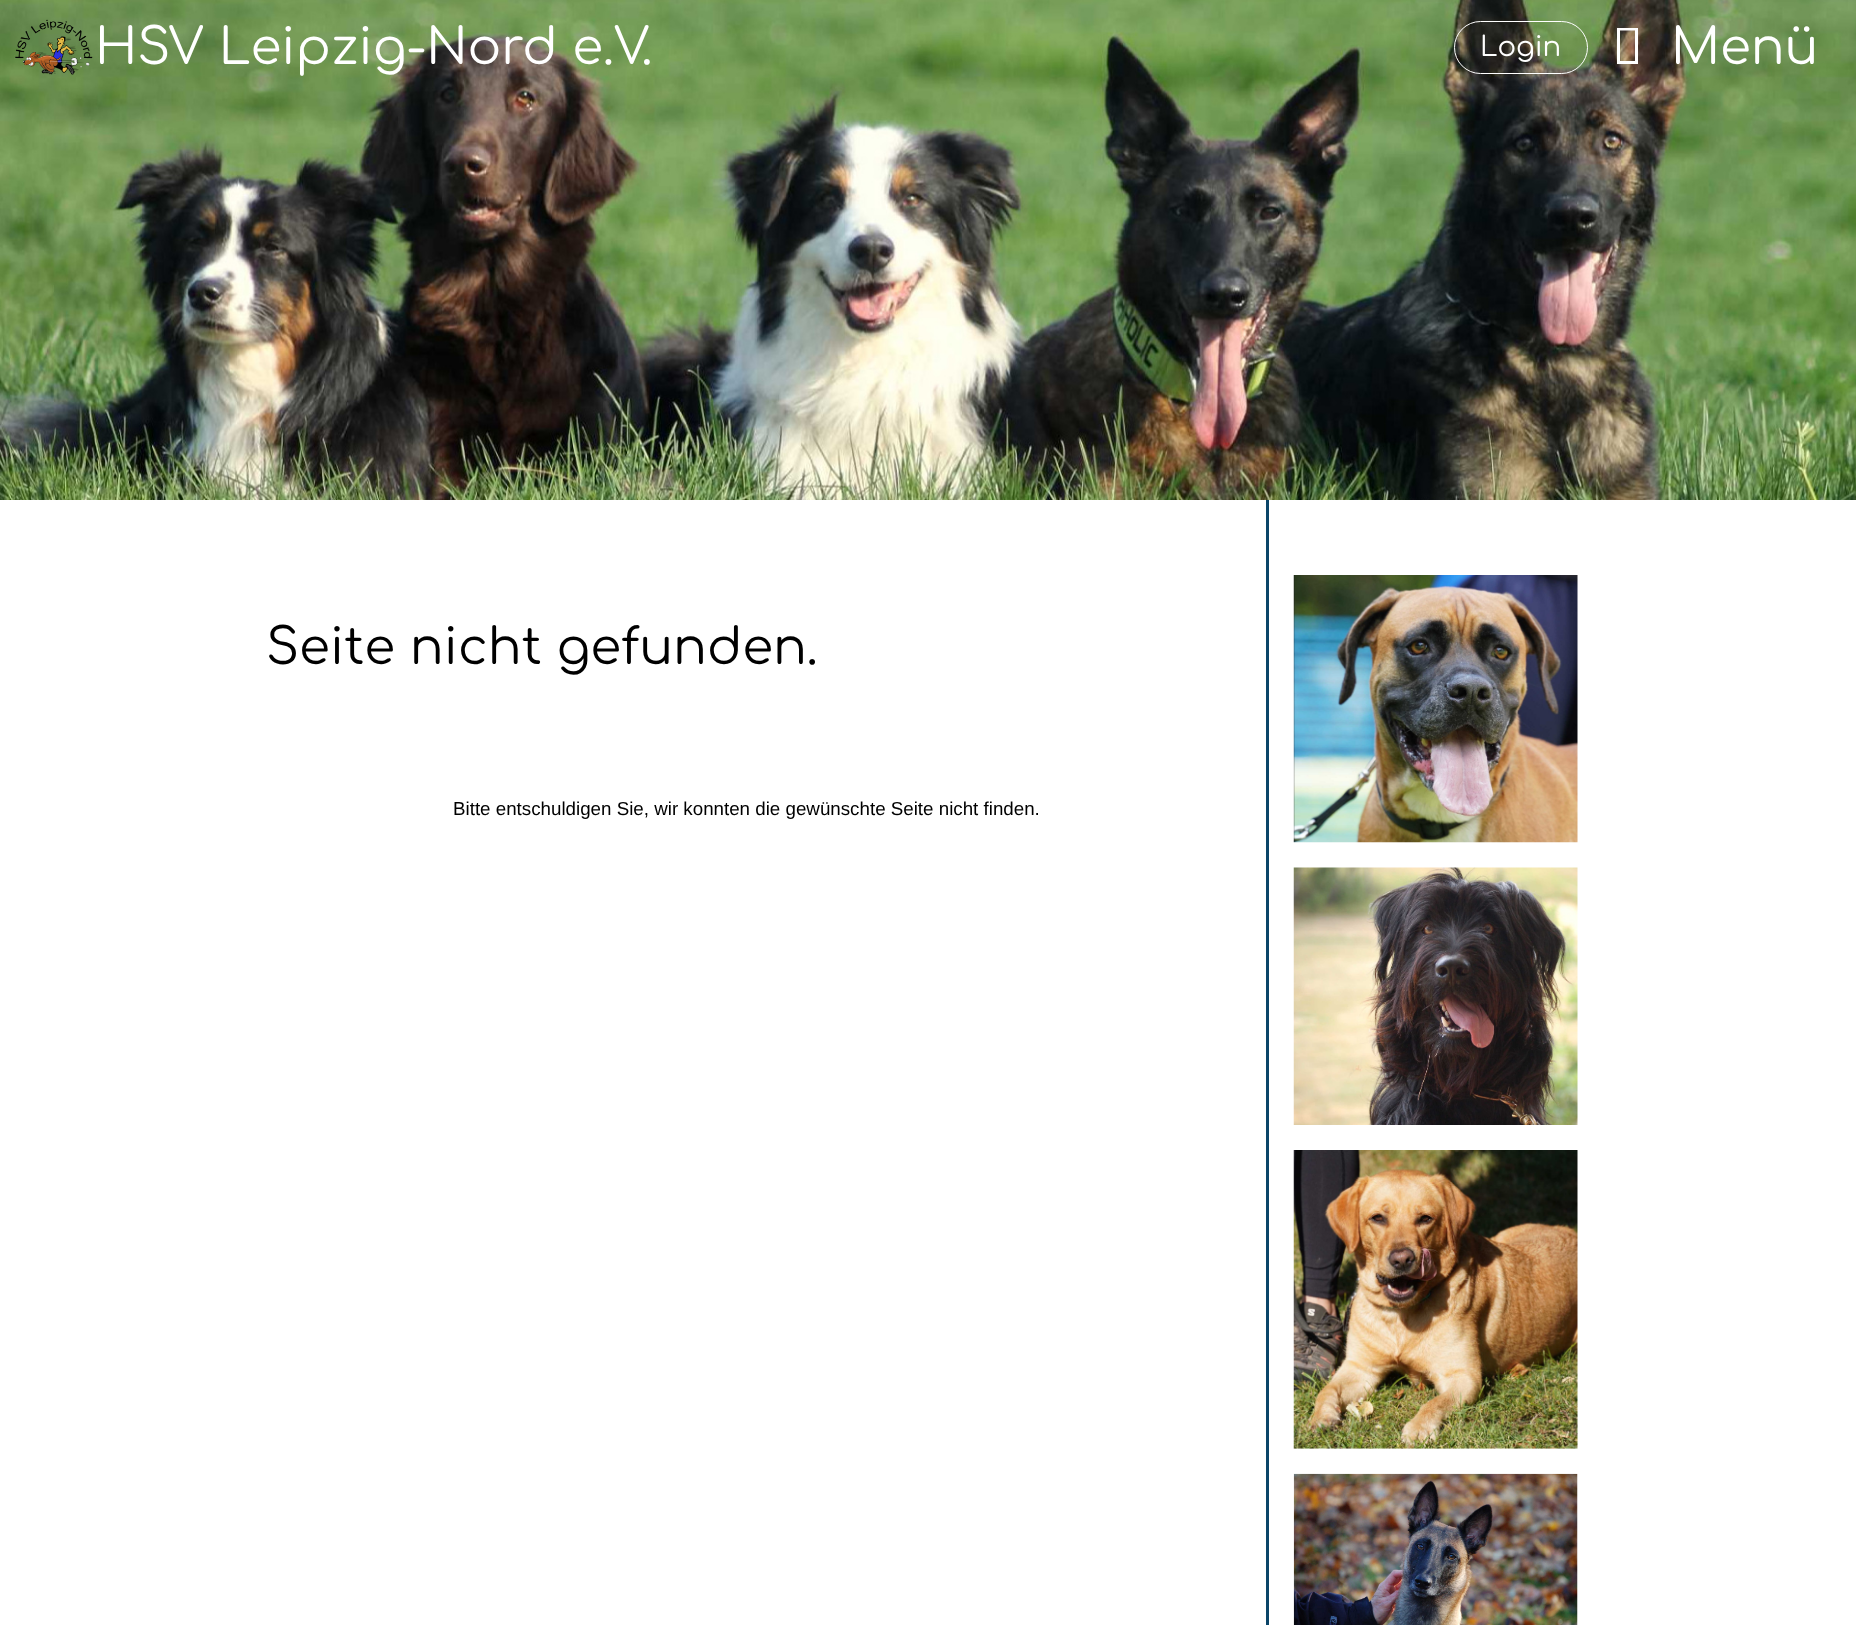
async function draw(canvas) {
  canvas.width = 1856;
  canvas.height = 1625;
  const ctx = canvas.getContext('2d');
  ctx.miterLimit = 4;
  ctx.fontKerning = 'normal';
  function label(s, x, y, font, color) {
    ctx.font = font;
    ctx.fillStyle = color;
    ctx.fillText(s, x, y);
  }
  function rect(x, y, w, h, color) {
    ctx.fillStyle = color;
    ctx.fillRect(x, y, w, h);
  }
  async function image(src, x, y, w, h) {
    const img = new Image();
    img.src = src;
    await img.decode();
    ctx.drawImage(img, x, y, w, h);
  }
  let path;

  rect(0, 0, 1856, 1625, '#fff');
  await image('assets/img2.png', 0, 0, 1856, 500);
  await image('assets/img1.png', 14, 19, 79, 56);
  label('HSV Leipzig-Nord e.V.', 95, 64, '50px Comfortaa', '#fff');
  ctx.beginPath();
  ctx.roundRect(1454.5, 21.5, 133, 52, 26);
  ctx.strokeStyle = '#fff';
  ctx.stroke();
  label('Login', 1480, 56, '27.5px Comfortaa', '#fff');
  path = new Path2D('M1617 64V28H1638V64ZM1620 61H1635V30.5H1620Z');
  ctx.fill(path);
  label('Menü', 1671, 64, '50px Comfortaa', '#fff');
  label('Seite nicht gefunden.', 266, 664, '50px Comfortaa', '#000');
  label('Bitte entschuldigen Sie, wir konnten die gewünschte Seite nicht finden.', 453, 815, '18.75px Liberation Sans', '#000');
  rect(1266, 500, 3, 1125, '#0b4568');
  await image('assets/img3.png', 1293, 575, 285, 268);
  await image('assets/img4.png', 1293, 867, 285, 258);
  await image('assets/img5.png', 1293, 1150, 285, 299);
  await image('assets/img6.png', 1293, 1473, 285, 152);
}

draw(document.querySelector('canvas'));
